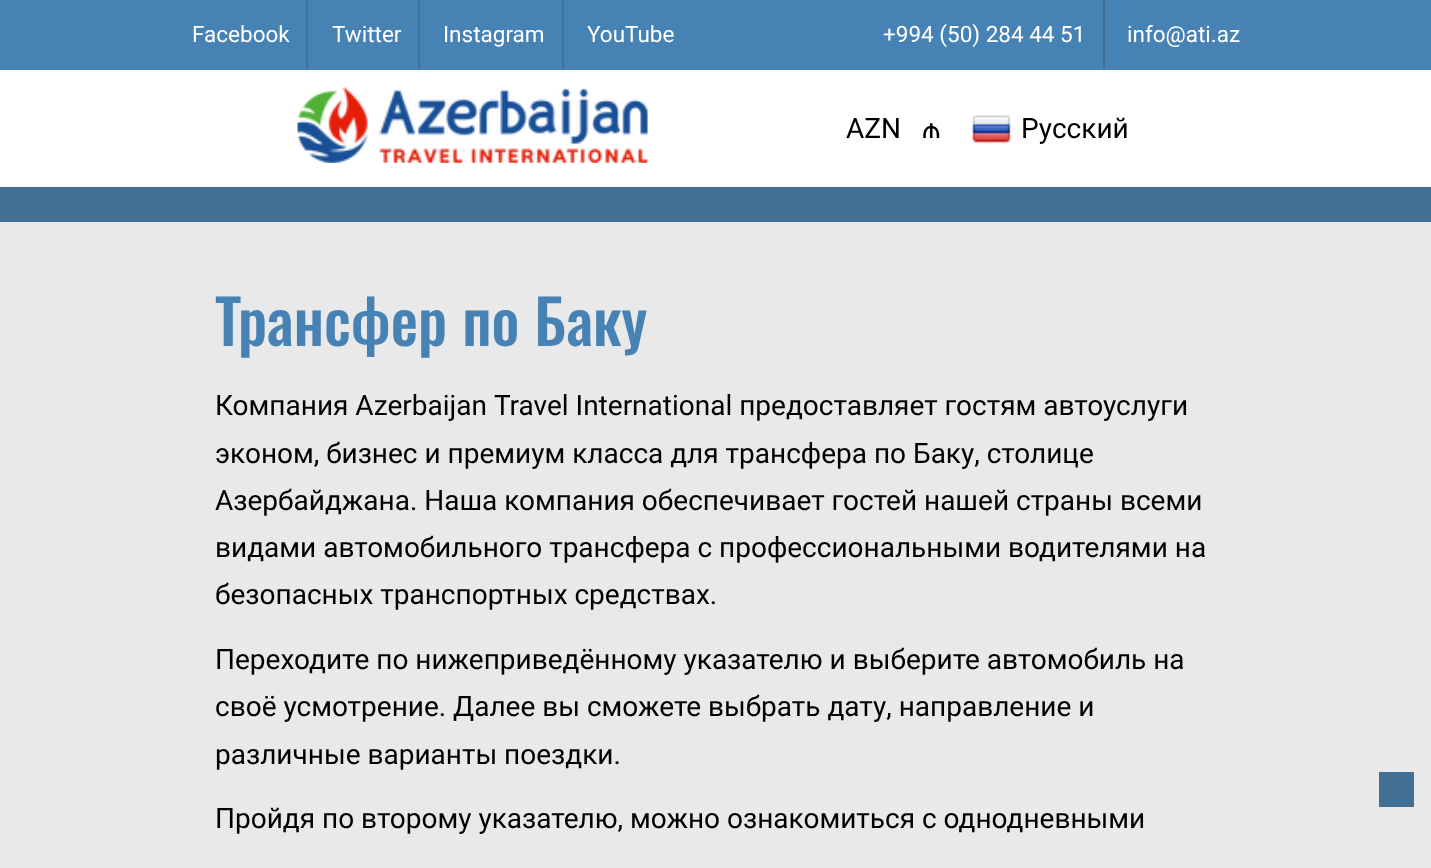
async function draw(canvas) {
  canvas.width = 1431;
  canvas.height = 868;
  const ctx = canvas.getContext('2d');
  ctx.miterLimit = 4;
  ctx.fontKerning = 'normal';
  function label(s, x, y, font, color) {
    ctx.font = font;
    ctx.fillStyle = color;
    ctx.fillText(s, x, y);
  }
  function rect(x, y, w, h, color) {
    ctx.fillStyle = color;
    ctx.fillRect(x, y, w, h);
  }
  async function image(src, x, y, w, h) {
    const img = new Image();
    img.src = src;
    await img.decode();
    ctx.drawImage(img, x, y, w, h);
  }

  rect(0, 0, 1431, 868, '#e9e9e9');
  rect(0, 0, 1431, 70, '#4682b4');
  rect(306, 0, 2, 70, '#417094');
  label('Facebook', 192, 42, '22.5px Roboto', '#fff');
  rect(418, 0, 2, 70, '#417094');
  label('Twitter', 332, 42, '22.5px Roboto', '#fff');
  rect(562, 0, 2, 70, '#417094');
  label('Instagram', 443, 42, '22.5px Roboto', '#fff');
  label('YouTube', 587, 42, '22.5px Roboto', '#fff');
  rect(1103, 0, 2, 70, '#417094');
  label('+994 (50) 284 44 51', 883, 42, '22.5px Roboto', '#fff');
  label('info@ati.az', 1127, 42, '22.5px Roboto', '#fff');
  rect(0, 70, 1431, 117, '#fff');
  await image('assets/img1.png', 297, 87, 351, 76);
  label('AZN', 846, 138, '28px Roboto', '#000');
  label('₼', 922, 138, '28px Roboto', '#000');
  await image('assets/img2.png', 972, 115, 39, 29);
  label('Русский', 1021, 138, '28px Roboto', '#000');
  rect(0, 187, 1431, 35, '#417094');
  label('Трансфер по Баку', 215, 346, '500 61.25px Oswald', '#4682b4');
  label('Компания Azerbaijan Travel International предоставляет гостям автоуслуги', 215, 415, '28px Roboto', '#000');
  label('эконом, бизнес и премиум класса для трансфера по Баку, столице', 215, 463, '28px Roboto', '#000');
  label('Азербайджана. Наша компания обеспечивает гостей нашей страны всеми', 215, 510, '28px Roboto', '#000');
  label('видами автомобильного трансфера с профессиональными водителями на', 215, 557, '28px Roboto', '#000');
  label('безопасных транспортных средствах.', 215, 604, '28px Roboto', '#000');
  label('Переходите по нижеприведённому указателю и выберите автомобиль на', 215, 669, '28px Roboto', '#000');
  label('своё усмотрение. Далее вы сможете выбрать дату, направление и', 215, 716, '28px Roboto', '#000');
  label('различные варианты поездки.', 215, 764, '28px Roboto', '#000');
  label('Пройдя по второму указателю, можно ознакомиться с однодневными', 215, 828, '28px Roboto', '#000');
  rect(1379, 772, 35, 35, '#417094');
}

draw(document.querySelector('canvas'));
